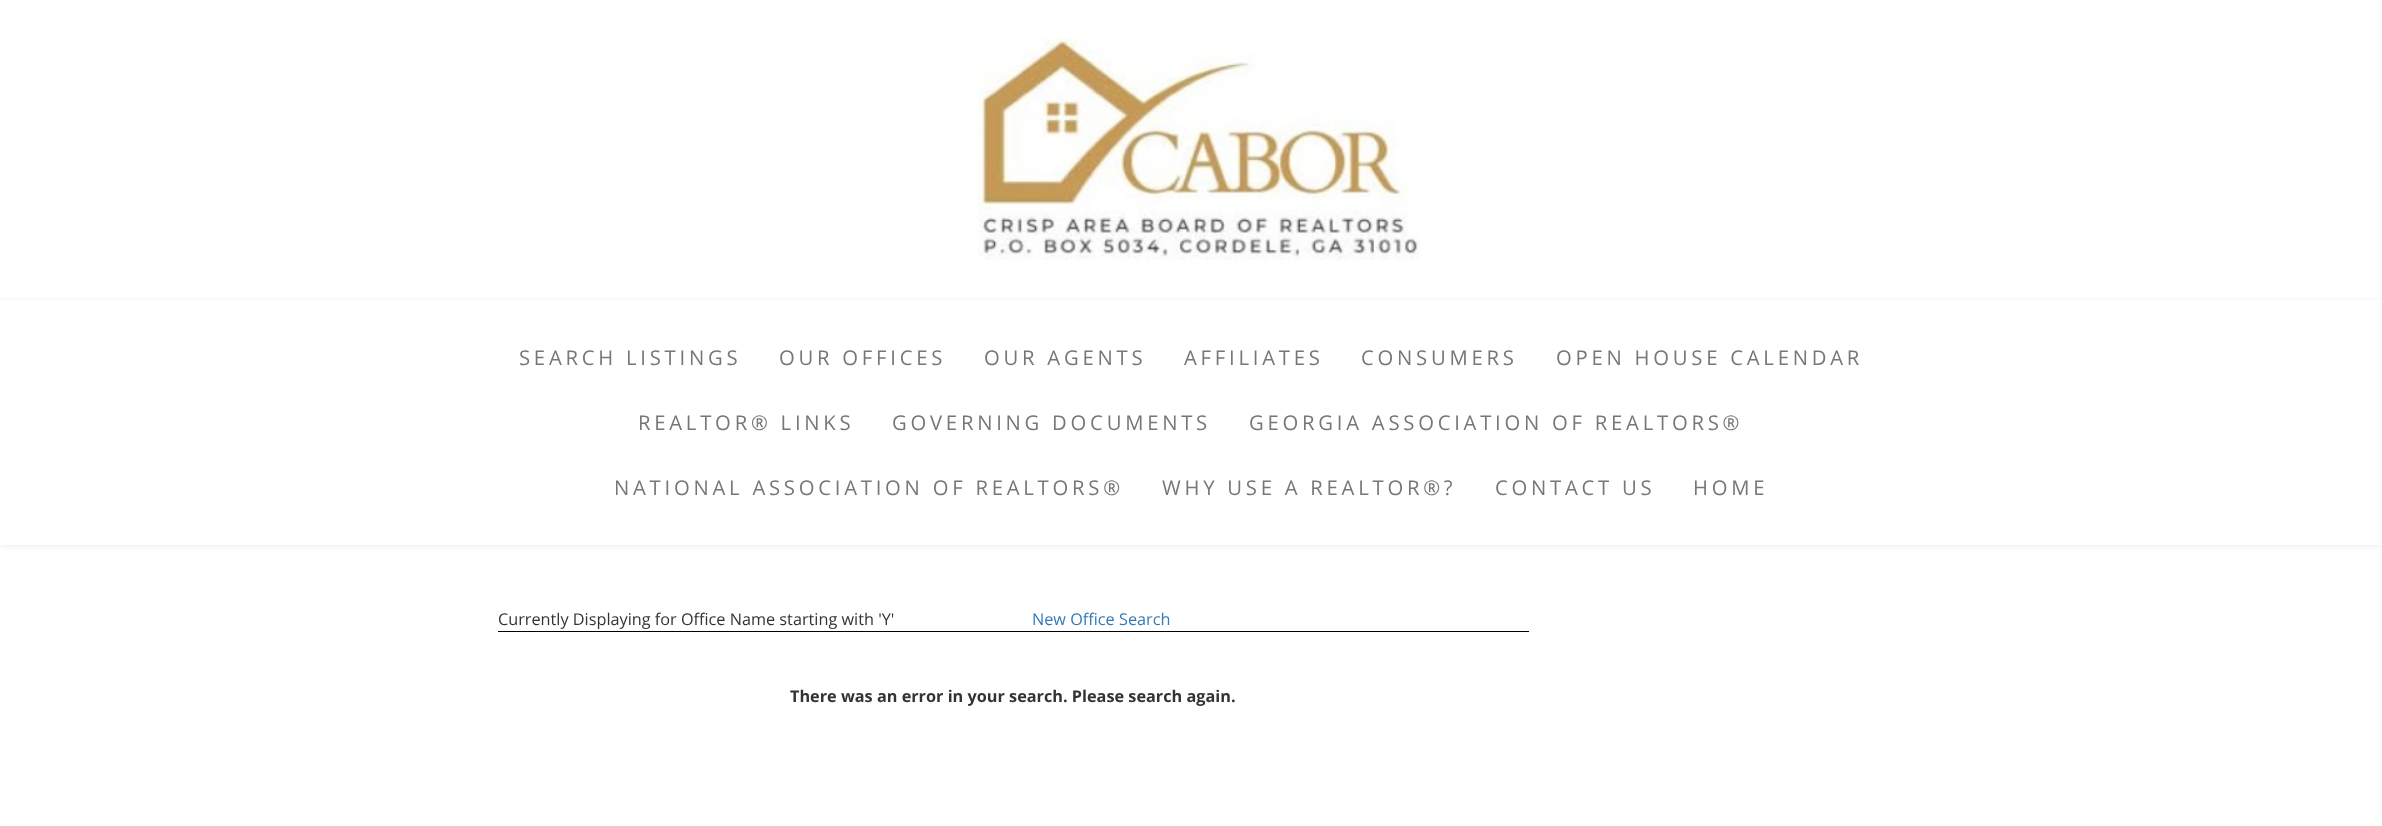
async function draw(canvas) {
  canvas.width = 2382;
  canvas.height = 826;
  const ctx = canvas.getContext('2d');
  ctx.miterLimit = 4;
  ctx.fontKerning = 'normal';
  function label(s, x, y, font, color) {
    ctx.font = font;
    ctx.fillStyle = color;
    ctx.fillText(s, x, y);
  }
  function rect(x, y, w, h, color) {
    ctx.fillStyle = color;
    ctx.fillRect(x, y, w, h);
  }
  async function image(src, x, y, w, h) {
    const img = new Image();
    img.src = src;
    await img.decode();
    ctx.drawImage(img, x, y, w, h);
  }
  let path;

  rect(0, 0, 2382, 826, '#fff');
  await image('assets/img1.png', 978, 38, 442, 222);
  ctx.save();
  path = new Path2D('M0 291H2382V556H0ZM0 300H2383V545H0Z');
  ctx.clip(path, 'evenodd');
  ctx.fillStyle = '#00000012';
  ctx.filter = 'blur(3px)';
  ctx.beginPath();
  ctx.rect(0, 301, 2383, 245);
  ctx.fill();
  ctx.filter = 'none';
  ctx.restore();
  ctx.letterSpacing = '3.75px';
  label('SEARCH LISTINGS', 519, 365, '20.3px Open Sans', '#777');
  label('OUR OFFICES', 779, 365, '20.3px Open Sans', '#777');
  label('OUR AGENTS', 984, 365, '20.3px Open Sans', '#777');
  label('AFFILIATES', 1184, 365, '20.3px Open Sans', '#777');
  label('CONSUMERS', 1361, 365, '20.3px Open Sans', '#777');
  label('OPEN HOUSE CALENDAR', 1556, 365, '20.3px Open Sans', '#777');
  label('REALTOR® LINKS', 638, 430, '20.3px Open Sans', '#777');
  label('GOVERNING DOCUMENTS', 892, 430, '20.3px Open Sans', '#777');
  label('GEORGIA ASSOCIATION OF REALTORS®', 1249, 430, '20.3px Open Sans', '#777');
  label('NATIONAL ASSOCIATION OF REALTORS®', 614, 495, '20.3px Open Sans', '#777');
  label('WHY USE A REALTOR®?', 1162, 495, '20.3px Open Sans', '#777');
  label('CONTACT US', 1495, 495, '20.3px Open Sans', '#777');
  label('HOME', 1693, 495, '20.3px Open Sans', '#777');
  ctx.letterSpacing = '0px';
  label('Currently Displaying for Office Name starting with \'Y\'', 498, 625, '16.25px Open Sans', '#333');
  label('New Office Search', 1032, 625, '16.25px Open Sans', '#337ab7');
  rect(498, 631, 1031, 1, '#000');
  label('There was an error in your search. Please search again.', 790, 702, 'bold 16.25px Open Sans', '#333');
}

draw(document.querySelector('canvas'));
